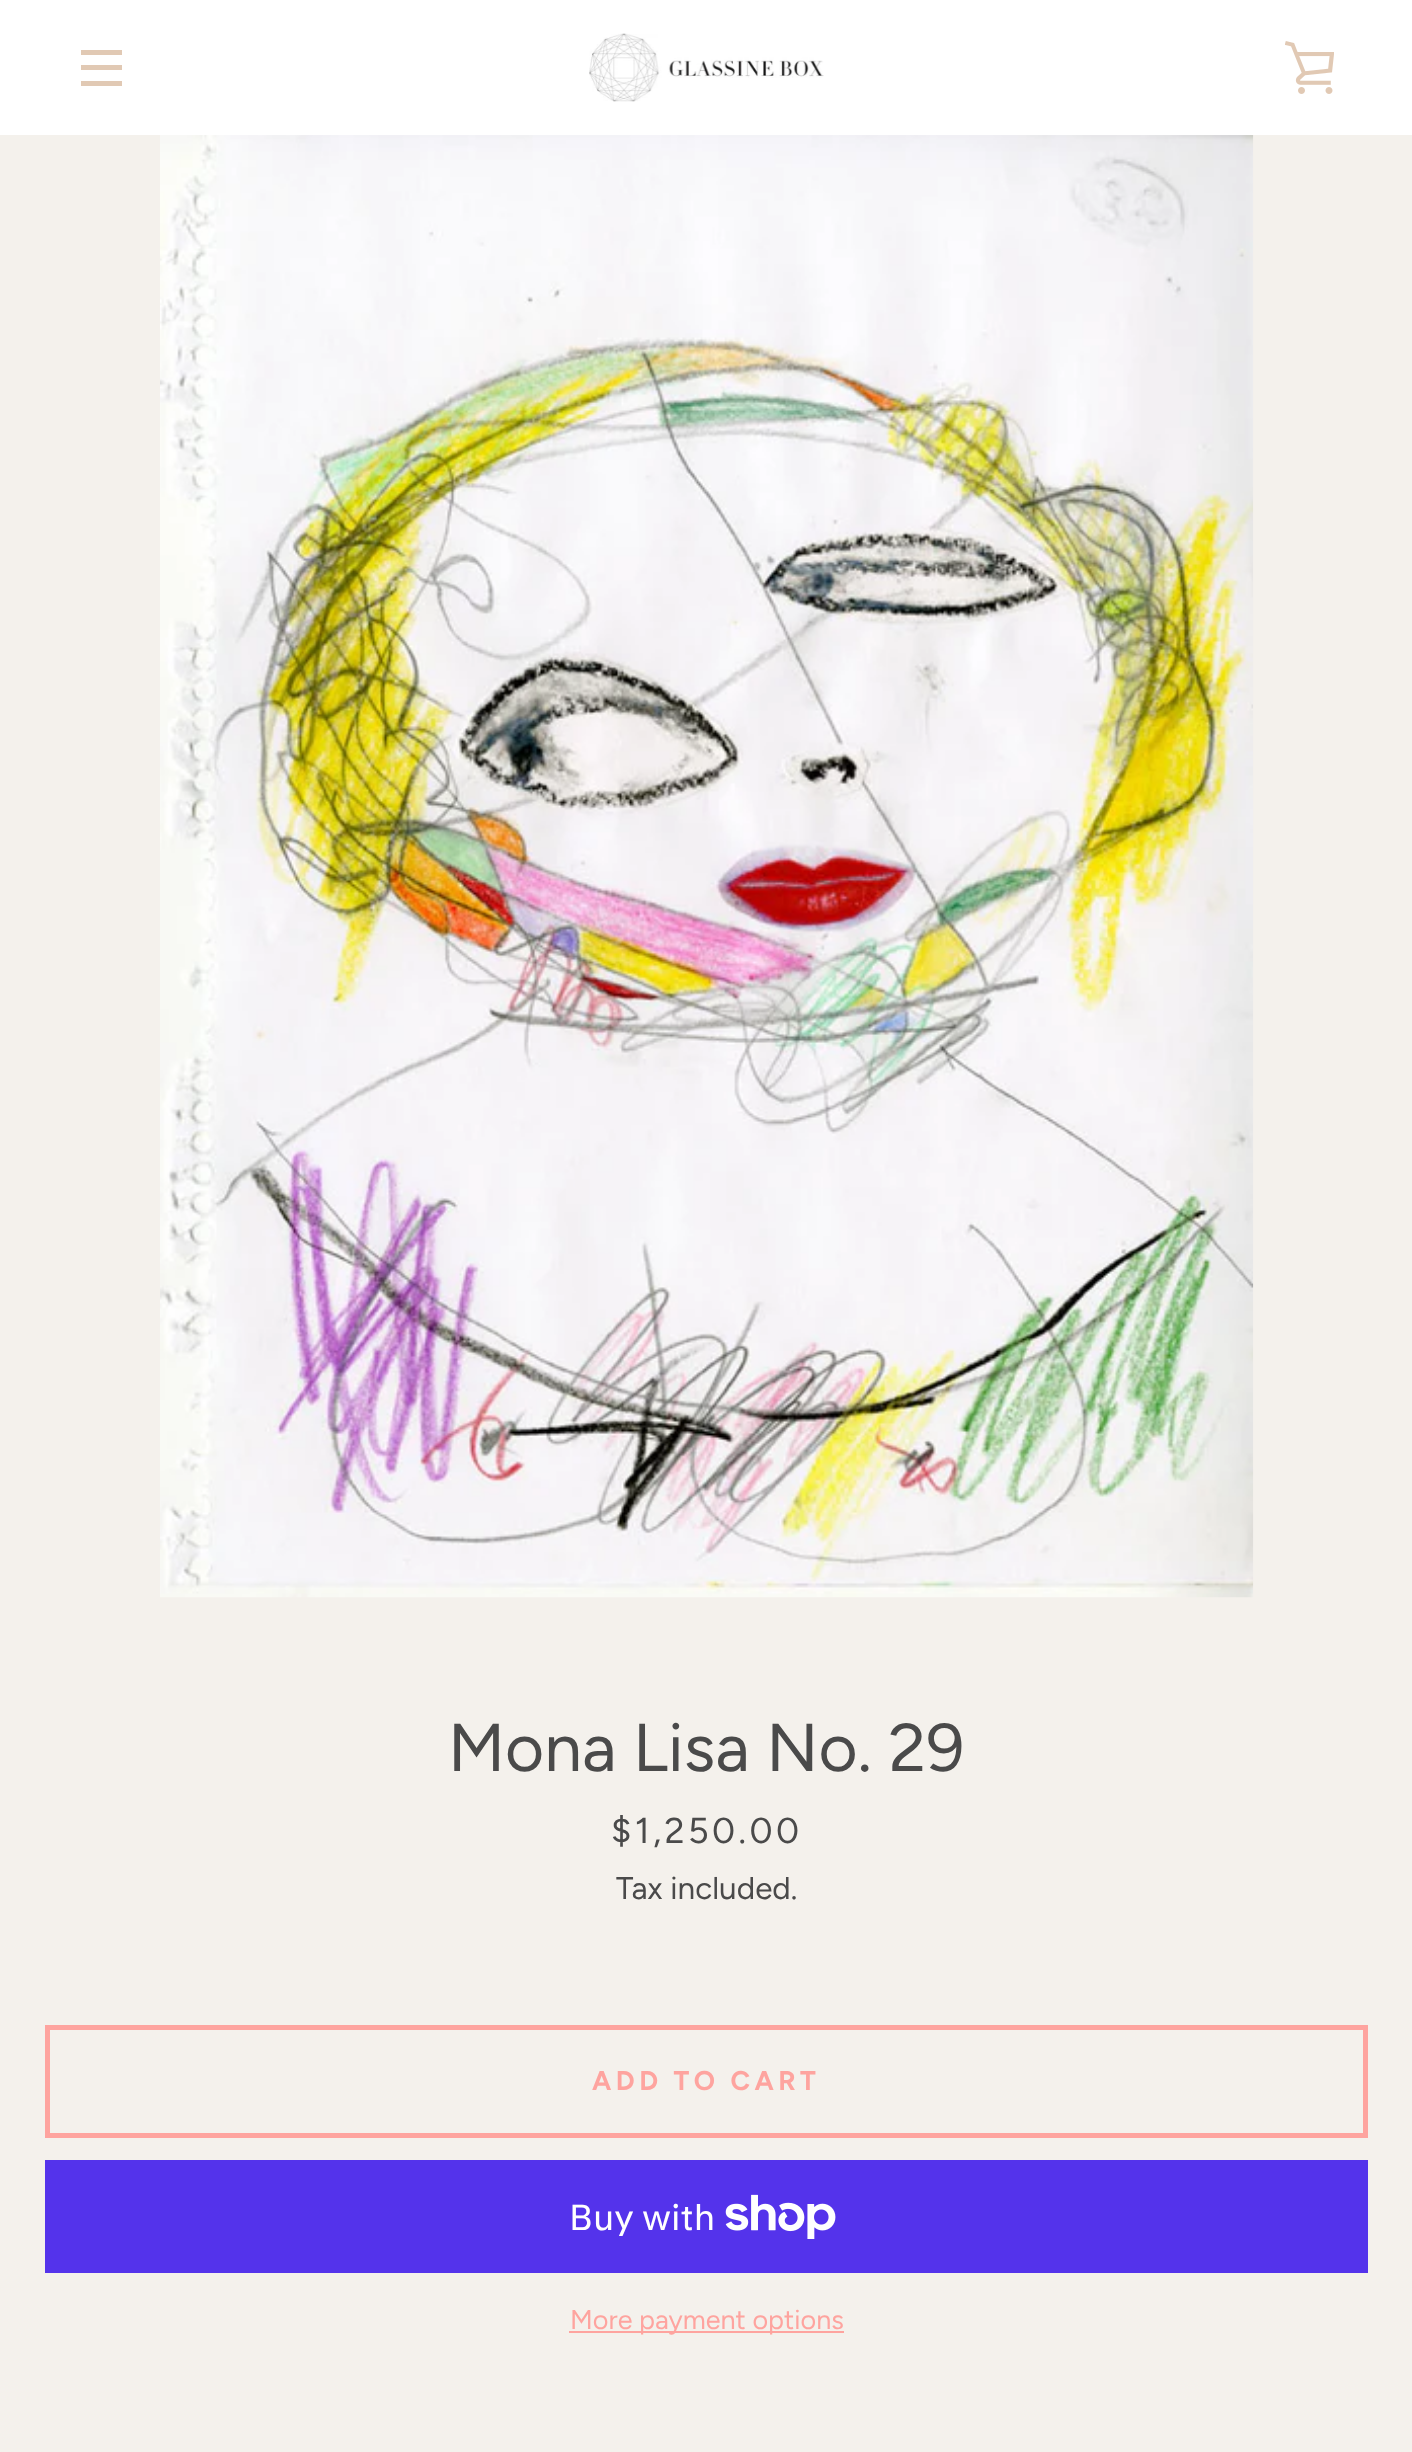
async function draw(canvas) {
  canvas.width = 1412;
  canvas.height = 2452;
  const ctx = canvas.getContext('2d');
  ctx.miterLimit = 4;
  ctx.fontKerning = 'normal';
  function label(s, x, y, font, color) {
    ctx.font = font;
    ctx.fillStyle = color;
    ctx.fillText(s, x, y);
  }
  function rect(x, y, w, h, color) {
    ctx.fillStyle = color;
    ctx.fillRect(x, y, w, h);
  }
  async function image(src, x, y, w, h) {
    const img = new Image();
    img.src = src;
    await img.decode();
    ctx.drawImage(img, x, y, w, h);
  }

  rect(0, 0, 1412, 2452, '#f4f1ec');
  rect(0, 0, 1412, 135, '#fff');
  rect(81, 50, 41, 5, '#e1c9b4');
  rect(81, 65, 41, 5, '#e1c9b4');
  rect(81, 81, 41, 5, '#e1c9b4');
  await image('assets/img1.png', 589, 33, 235, 69);
  await image('assets/img2.png', 1285, 41, 49, 53);
  await image('assets/img3.png', 160, 135, 1094, 1463);
  label('Mona Lisa No. 29', 448, 1771, '67.5px Figtree', '#4a4a4a');
  ctx.letterSpacing = '3.4px';
  label('$1,250.00', 611, 1843, '36px Figtree', '#4a4a4a');
  ctx.letterSpacing = '0px';
  label('Tax included.', 616, 1899, '31.5px Figtree', '#4a4a4a');
  ctx.strokeStyle = '#fea49f';
  ctx.lineWidth = 5;
  ctx.strokeRect(47.5, 2027.5, 1318, 108);
  ctx.letterSpacing = '4.5px';
  label('ADD TO CART', 592, 2090, 'bold 27px Figtree', '#fea49f');
  rect(45, 2160, 1323, 113, '#5433eb');
  ctx.letterSpacing = '0px';
  label('Buy with', 569, 2230, '36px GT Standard', '#fff');
  await image('assets/img4.png', 725, 2194, 111, 45);
  rect(569, 2331, 275, 2, '#fea49f');
  label('More payment options', 570, 2329, '27px Figtree', '#fea49f');
}

draw(document.querySelector('canvas'));
